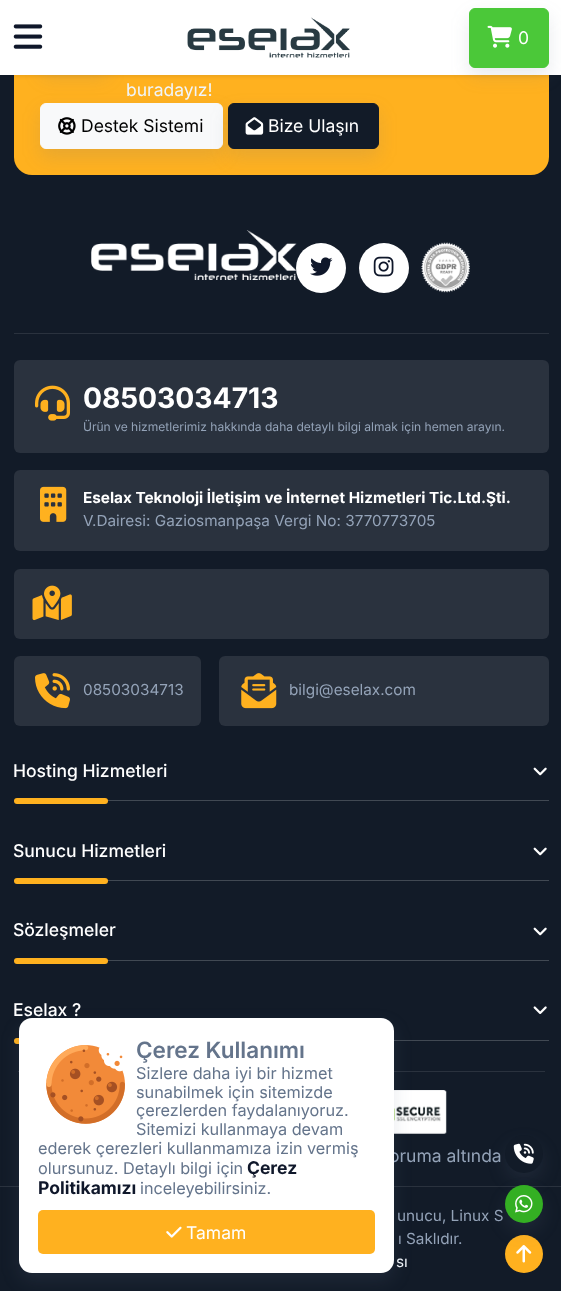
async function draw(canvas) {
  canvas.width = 561;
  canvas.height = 1291;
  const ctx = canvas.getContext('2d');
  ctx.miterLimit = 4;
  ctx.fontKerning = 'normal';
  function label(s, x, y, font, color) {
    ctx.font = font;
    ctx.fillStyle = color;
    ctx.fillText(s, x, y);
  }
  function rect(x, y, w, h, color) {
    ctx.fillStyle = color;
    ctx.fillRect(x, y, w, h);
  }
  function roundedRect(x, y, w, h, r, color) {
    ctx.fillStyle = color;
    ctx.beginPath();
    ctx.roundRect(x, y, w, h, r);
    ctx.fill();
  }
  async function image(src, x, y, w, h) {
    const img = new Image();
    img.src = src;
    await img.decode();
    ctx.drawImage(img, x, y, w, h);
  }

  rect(0, 0, 561, 1291, '#121b28');
  roundedRect(14, -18, 535, 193, 18, '#ffb11f');
  ctx.fillStyle = '#0000001a';
  ctx.filter = 'blur(2px)';
  ctx.beginPath();
  ctx.rect(0, 1, 561, 75);
  ctx.fill();
  ctx.filter = 'none';
  ctx.fillStyle = '#64748b26';
  ctx.filter = 'blur(9px)';
  ctx.beginPath();
  ctx.roundRect(40, 9, 69, 69, 9);
  ctx.fill();
  ctx.filter = 'none';
  rect(0, 0, 561, 75, '#fff');
  await image('assets/img1.png', 13, 24, 30, 25);
  await image('assets/img2.png', 187, 17, 163, 41);
  ctx.fillStyle = '#64748b26';
  ctx.filter = 'blur(9px)';
  ctx.beginPath();
  ctx.roundRect(469, 16, 80, 60, 6);
  ctx.fill();
  ctx.filter = 'none';
  ctx.fillStyle = '#4bc839';
  ctx.beginPath();
  ctx.roundRect(469.5, 8.5, 79, 59, 5.5);
  ctx.fill();
  ctx.strokeStyle = '#4bc839';
  ctx.stroke();
  await image('assets/img3.png', 487, 25, 25, 23);
  label('0', 518, 44, '17.5px Inter', '#fff');
  label('buradayız!', 126, 96, '17.5px Inter', '#f1f5f9');
  ctx.fillStyle = '#64748b26';
  ctx.filter = 'blur(9px)';
  ctx.beginPath();
  ctx.roundRect(40, 111, 183, 47, 6);
  ctx.fill();
  ctx.filter = 'none';
  ctx.fillStyle = '#f8f9fa';
  ctx.beginPath();
  ctx.roundRect(40.5, 103.5, 182, 45, 5.5);
  ctx.fill();
  ctx.strokeStyle = '#f8f9fa';
  ctx.stroke();
  await image('assets/img4.png', 58, 117, 18, 18);
  label('Destek Sistemi', 81, 132, '17.5px Inter', '#000');
  ctx.fillStyle = '#64748b26';
  ctx.filter = 'blur(9px)';
  ctx.beginPath();
  ctx.roundRect(228, 111, 151, 47, 6);
  ctx.fill();
  ctx.filter = 'none';
  ctx.fillStyle = '#121b28';
  ctx.beginPath();
  ctx.roundRect(228.5, 103.5, 150, 45, 5.5);
  ctx.fill();
  ctx.strokeStyle = '#121b28';
  ctx.stroke();
  await image('assets/img5.png', 245, 117, 19, 18);
  label('Bize Ulaşın', 268, 132, '17.5px Inter', '#fff');
  rect(14, 333, 535, 1, '#2a323e');
  await image('assets/img6.png', 91, 230, 206, 50);
  ctx.fillStyle = '#fff';
  ctx.beginPath();
  ctx.arc(321, 268, 25, 0, 2 * Math.PI);
  ctx.fill();
  await image('assets/img7.png', 310, 257, 23, 19);
  ctx.beginPath();
  ctx.arc(384, 268, 25, 0, 2 * Math.PI);
  ctx.fill();
  await image('assets/img8.png', 373, 256, 21, 21);
  await image('assets/img9.png', 421, 242, 49, 51);
  roundedRect(14, 360, 535, 93, 6, '#2a323e');
  await image('assets/img10.png', 35, 385, 35, 36);
  label('08503034713', 83, 408, 'bold 28.25px Inter', '#fff');
  label('Ürün ve hizmetlerimiz hakkında daha detaylı bilgi almak için hemen arayın.', 83, 431, '12.05px Inter', '#94a3b8');
  roundedRect(14, 470, 535, 81, 6, '#2a323e');
  await image('assets/img11.png', 40, 486, 27, 36);
  label('Eselax Teknoloji İletişim ve İnternet Hizmetleri Tic.Ltd.Şti.', 83, 503, 'bold 15.3px Inter', '#fff');
  label('V.Dairesi: Gaziosmanpaşa Vergi No: 3770773705', 83, 526, '15.3px Inter', '#94a3b8');
  roundedRect(14, 569, 535, 70, 6, '#2a323e');
  await image('assets/img12.png', 32, 585, 40, 36);
  roundedRect(14, 656, 187, 70, 6, '#2a323e');
  await image('assets/img13.png', 35, 673, 35, 36);
  label('08503034713', 83, 695, '15.3px Inter', '#94a3b8');
  roundedRect(219, 656, 330, 70, 6, '#2a323e');
  await image('assets/img14.png', 241, 673, 36, 36);
  label('bilgi@eselax.com', 289, 695, '15.3px Inter', '#94a3b8');
  rect(14, 800, 535, 1, '#414953');
  label('Hosting Hizmetleri', 13, 777, '500 17.5px Inter', '#fff');
  await image('assets/img15.png', 533, 767, 14, 9);
  roundedRect(14, 798, 94, 6, 3, '#ffb11f');
  rect(14, 880, 535, 1, '#414953');
  label('Sunucu Hizmetleri', 13, 857, '500 17.5px Inter', '#fff');
  await image('assets/img15.png', 533, 847, 14, 9);
  roundedRect(14, 878, 94, 6, 3, '#ffb11f');
  rect(14, 960, 535, 1, '#414953');
  label('Sözleşmeler', 13, 936, '500 17.5px Inter', '#fff');
  await image('assets/img15.png', 533, 927, 14, 9);
  roundedRect(14, 958, 94, 6, 3, '#ffb11f');
  rect(14, 1040, 535, 1, '#414953');
  label('Eselax ?', 13, 1016, '500 17.5px Inter', '#fff');
  await image('assets/img16.png', 533, 1006, 14, 8);
  roundedRect(14, 1038, 94, 6, 3, '#ffb11f');
  rect(18, 1071, 527, 1, '#2a323e');
  await image('assets/img17.png', 394, 1090, 53, 44);
  label('oruma altında', 389, 1162, '17.5px Inter', '#94a3b8');
  rect(0, 1186, 561, 1, '#2a323e');
  label('unucu, Linux S', 397, 1221, '15.3px Inter', '#94a3b8');
  label('ı Saklıdır.', 398, 1244, '15.3px Inter', '#94a3b8');
  label('sı', 396, 1267, '15.3px Inter', '#f1f5f9');
  ctx.fillStyle = '#64748b26';
  ctx.filter = 'blur(9px)';
  ctx.beginPath();
  ctx.roundRect(19, 1026, 375, 255, 13);
  ctx.fill();
  ctx.filter = 'none';
  roundedRect(19, 1018, 375, 255, 13, '#fff');
  await image('assets/img18.png', 46, 1045, 79, 79);
  label('Çerez Kullanımı', 136, 1058, '600 22.5px Inter', '#64748b');
  label('Sizlere daha iyi bir hizmet', 136, 1079, '16.25px Inter', '#64748b');
  label('sunabilmek için sitemizde', 136, 1098, '16.25px Inter', '#64748b');
  label('çerezlerden faydalanıyoruz.', 136, 1116, '16.25px Inter', '#64748b');
  label('Sitemizi kullanmaya devam', 136, 1135, '16.25px Inter', '#64748b');
  label('ederek çerezleri kullanmamıza izin vermiş', 38, 1154, '16.25px Inter', '#64748b');
  label('olursunuz. Detaylı bilgi için', 38, 1174, '16.25px Inter', '#64748b');
  label('Çerez', 247, 1174, 'bold 17.5px Inter', '#0f172a');
  label('Politikamızı', 38, 1194, 'bold 17.5px Inter', '#0f172a');
  label('inceleyebilirsiniz.', 140, 1194, '16.25px Inter', '#64748b');
  roundedRect(38, 1210, 337, 44, 5, '#ffb11f');
  await image('assets/img19.png', 166, 1226, 16, 12);
  label('Tamam', 186, 1239, '17.5px Inter', '#fff');
  ctx.fillStyle = '#64748b26';
  ctx.filter = 'blur(9px)';
  ctx.beginPath();
  ctx.roundRect(505, 1144, 38, 37, 18.5);
  ctx.fill();
  ctx.filter = 'none';
  ctx.fillStyle = '#121b28';
  ctx.beginPath();
  ctx.arc(524, 1154, 19, 0, 2 * Math.PI);
  ctx.fill();
  await image('assets/img20.png', 513, 1143, 21, 21);
  ctx.fillStyle = '#ffb11f';
  ctx.beginPath();
  ctx.arc(524, 1254, 19, 0, 2 * Math.PI);
  ctx.fill();
  await image('assets/img22.png', 516, 1245, 16, 18);
  ctx.fillStyle = '#64748b26';
  ctx.filter = 'blur(9px)';
  ctx.beginPath();
  ctx.roundRect(505, 1194, 38, 37, 18.5);
  ctx.fill();
  ctx.filter = 'none';
  ctx.fillStyle = '#34af23';
  ctx.beginPath();
  ctx.arc(524, 1204, 19, 0, 2 * Math.PI);
  ctx.fill();
  await image('assets/img21.png', 515, 1195, 18, 18);
}

draw(document.querySelector('canvas'));
